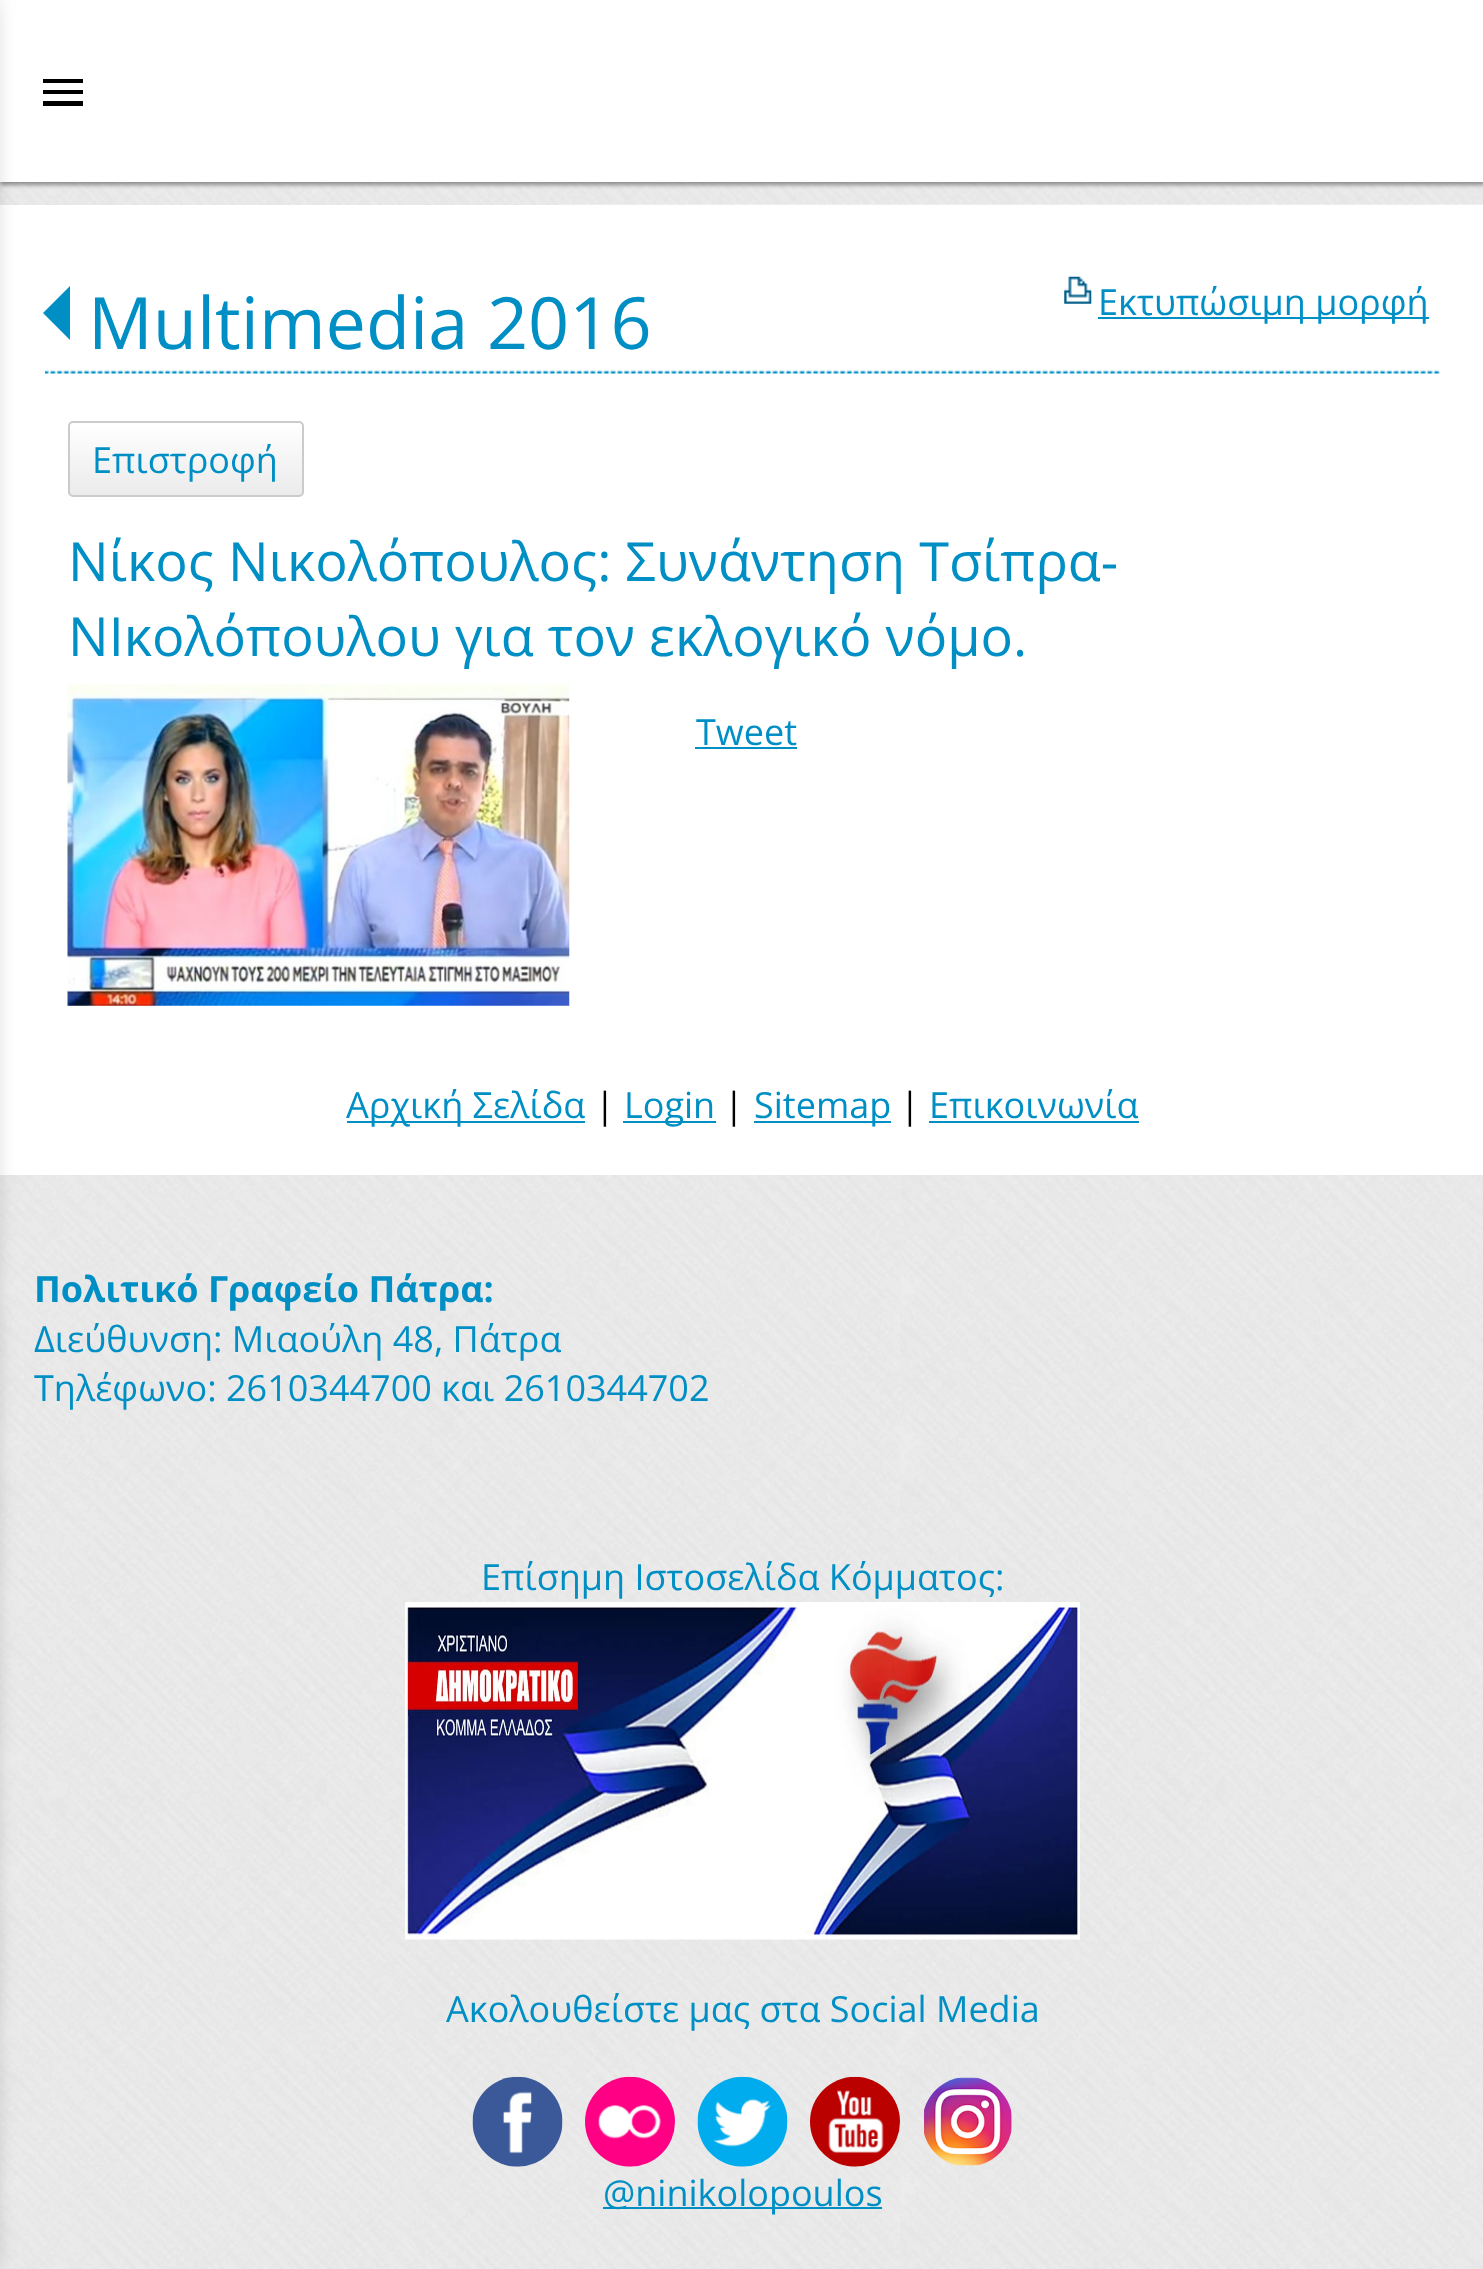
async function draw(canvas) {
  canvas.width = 1483;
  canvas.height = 2269;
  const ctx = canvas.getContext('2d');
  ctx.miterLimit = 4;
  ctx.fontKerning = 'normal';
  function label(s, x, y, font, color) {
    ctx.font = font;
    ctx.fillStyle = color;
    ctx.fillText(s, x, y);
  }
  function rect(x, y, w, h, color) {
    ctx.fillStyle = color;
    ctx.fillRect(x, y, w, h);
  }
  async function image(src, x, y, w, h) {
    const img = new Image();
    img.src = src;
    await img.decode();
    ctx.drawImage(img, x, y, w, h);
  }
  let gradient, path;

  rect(0, 0, 1483, 2269, '#fff');
  await image('assets/img1.png', 0, 182, 1483, 2087);
  ctx.fillStyle = '#00000066';
  ctx.filter = 'blur(2px)';
  ctx.beginPath();
  ctx.rect(0, 2, 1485, 183);
  ctx.fill();
  ctx.filter = 'none';
  rect(0, 0, 1483, 182, '#fff');
  ctx.fillStyle = '#000';
  path = new Path2D('M43 79H83V83H43ZM43 94V90H83V94ZM43 106V101H83V106Z');
  ctx.fill(path);
  rect(0, 205, 1483, 970, '#fff');
  ctx.fillStyle = '#00000066';
  ctx.filter = 'blur(13.5px)';
  ctx.beginPath();
  ctx.rect(-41, 0, 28, 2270);
  ctx.fill();
  ctx.filter = 'none';
  await image('assets/img2.png', 563, 204, 920, 1);
  await image('assets/img3.png', 45, 370, 1395, 4);
  ctx.fillStyle = '#008fc5';
  path = new Path2D('M70 286V340L43 313Z');
  ctx.fill(path);
  label('Multimedia 2016', 88, 349, '72px Open Sans', '#008fc5');
  await image('assets/img4.png', 1064, 276, 28, 28);
  rect(1098, 317, 331, 2, '#008fc5');
  label('Εκτυπώσιμη μορφή', 1098, 315, '36px Open Sans', '#008fc5');
  ctx.save();
  ctx.beginPath();
  ctx.roundRect(68, 421, 236, 76, 5);
  ctx.clip();
  gradient = ctx.createLinearGradient(186, 423, 186, 495);
  gradient.addColorStop(0, '#fff');
  gradient.addColorStop(1, '#ebebeb');
  ctx.fillStyle = gradient;
  ctx.fillRect(68, 423, 236, 72);
  ctx.restore();
  ctx.beginPath();
  ctx.roundRect(69, 422, 234, 74, 4);
  ctx.strokeStyle = '#cbcbcb';
  ctx.lineWidth = 2;
  ctx.stroke();
  label('Επιστροφή', 92, 473, '36px Open Sans', '#008fc5');
  label('Νίκος Νικολόπουλος: Συνάντηση Τσίπρα-', 68, 581, '54px Open Sans', '#008fc5');
  label('ΝΙκολόπουλου για τον εκλογικό νόμο.', 68, 656, '54px Open Sans', '#008fc5');
  await image('assets/img5.png', 67, 684, 503, 322);
  label('Tweet', 696, 745, '36px Open Sans', '#008fc5');
  rect(695, 747, 102, 2, '#008fc5');
  rect(347, 1121, 238, 2, '#008fc5');
  label('Αρχική Σελίδα', 346, 1118, '36px Open Sans', '#008fc5');
  label('|', 595, 1118, '36px Open Sans', '#000');
  rect(623, 1121, 93, 2, '#008fc5');
  label('Login', 624, 1118, '36px Open Sans', '#008fc5');
  label('|', 724, 1118, '36px Open Sans', '#000');
  rect(754, 1121, 137, 2, '#008fc5');
  label('Sitemap', 754, 1118, '36px Open Sans', '#008fc5');
  label('|', 900, 1118, '36px Open Sans', '#000');
  label('Επικοινωνία', 929, 1118, '36px Open Sans', '#008fc5');
  rect(929, 1121, 210, 2, '#008fc5');
  label('Πολιτικό Γραφείο Πάτρα:', 34, 1302, 'bold 36px Open Sans', '#008fc5');
  label('Διεύθυνση: Μιαούλη 48, Πάτρα', 34, 1352, '36px Open Sans', '#008fc5');
  label('Τηλέφωνο: 2610344700 και 2610344702', 34, 1401, '36px Open Sans', '#008fc5');
  label('Επίσημη Ιστοσελίδα Κόμματος:', 481, 1590, '36px Open Sans', '#008fc5');
  await image('assets/img6.png', 405, 1602, 675, 338);
  label('Ακολουθείστε μας στα Social Media', 446, 2022, '36px Open Sans', '#008fc5');
  await image('assets/img7.png', 472, 2076, 91, 91);
  await image('assets/img8.png', 585, 2076, 90, 91);
  await image('assets/img9.png', 697, 2076, 91, 91);
  await image('assets/img10.png', 810, 2076, 90, 91);
  await image('assets/img11.png', 924, 2077, 88, 89);
  rect(603, 2207, 279, 2, '#008fc5');
  label('@ninikolopoulos', 603, 2206, '36px Open Sans', '#008fc5');
}

draw(document.querySelector('canvas'));
